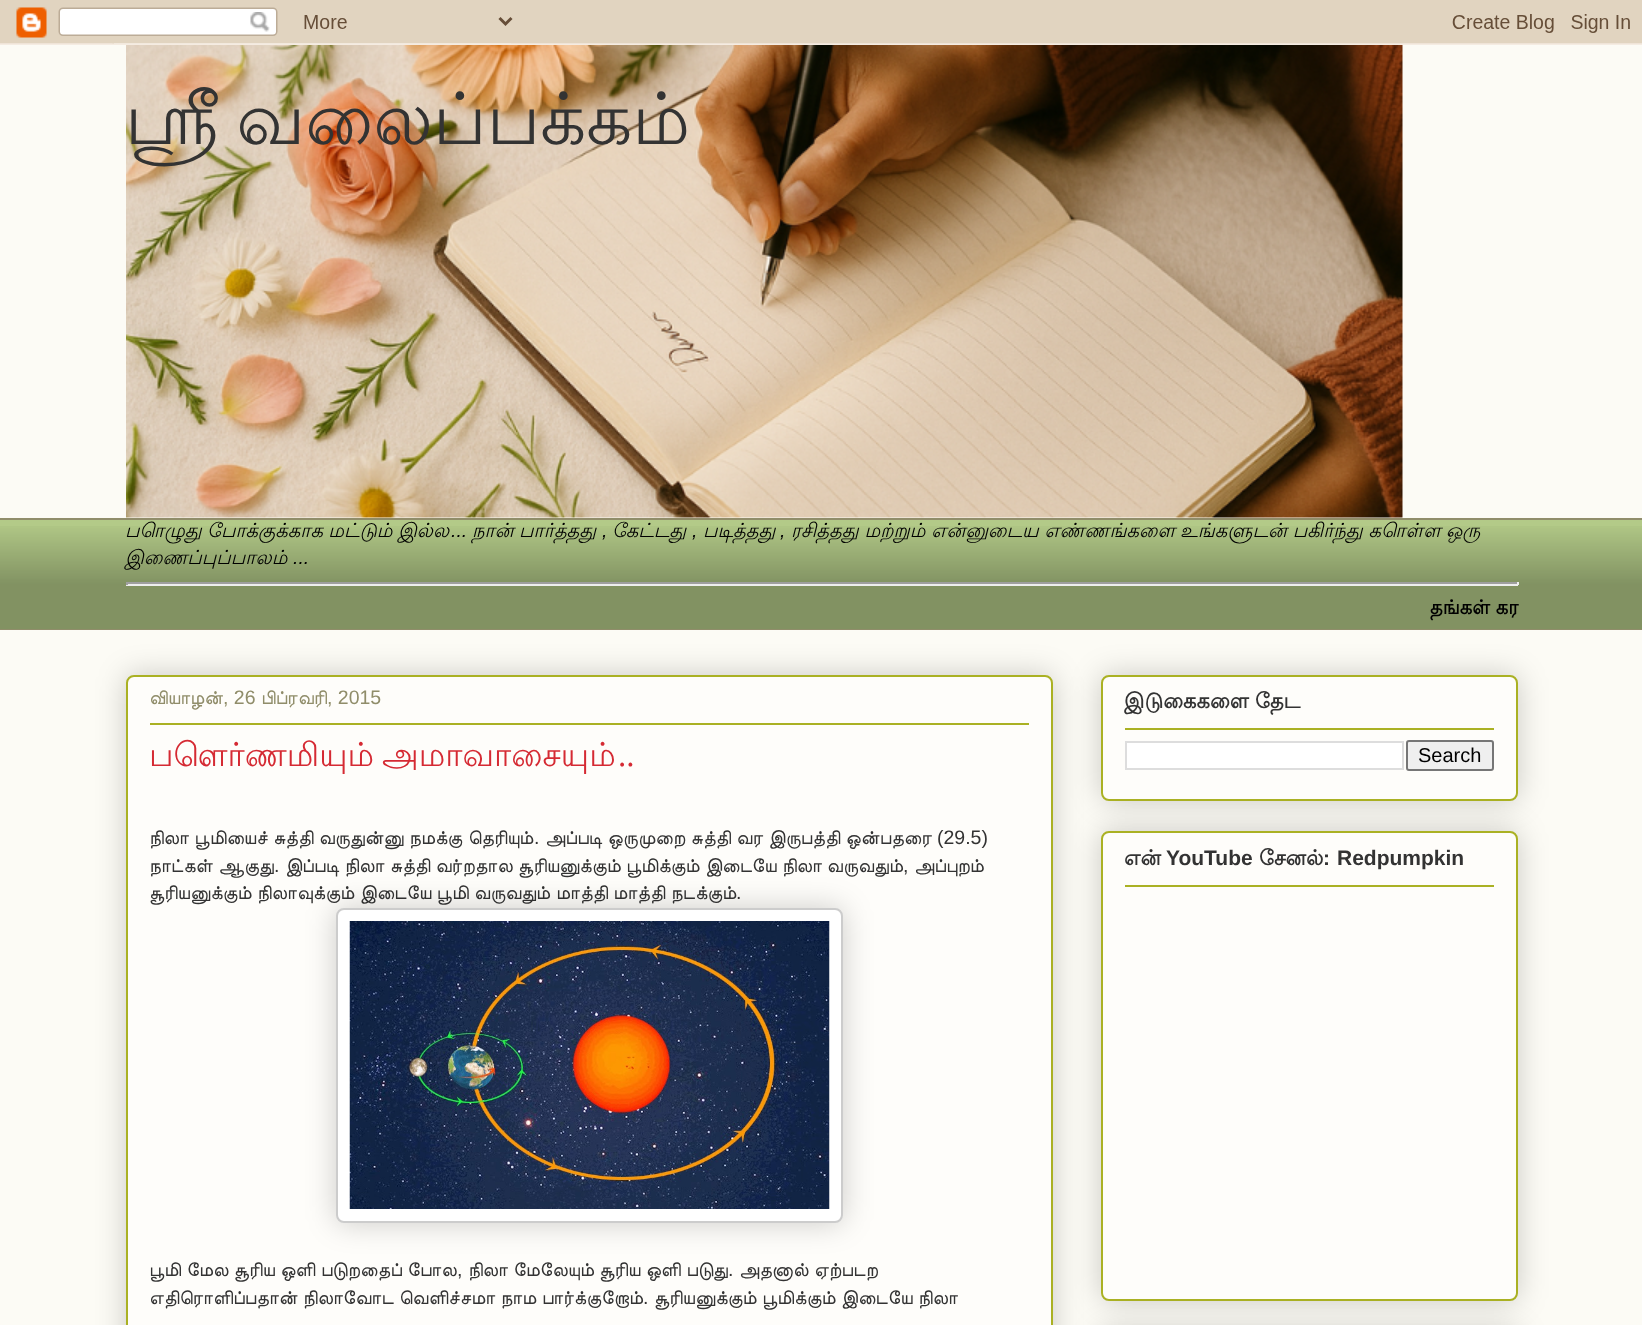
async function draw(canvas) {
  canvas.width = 1642;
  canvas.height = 1325;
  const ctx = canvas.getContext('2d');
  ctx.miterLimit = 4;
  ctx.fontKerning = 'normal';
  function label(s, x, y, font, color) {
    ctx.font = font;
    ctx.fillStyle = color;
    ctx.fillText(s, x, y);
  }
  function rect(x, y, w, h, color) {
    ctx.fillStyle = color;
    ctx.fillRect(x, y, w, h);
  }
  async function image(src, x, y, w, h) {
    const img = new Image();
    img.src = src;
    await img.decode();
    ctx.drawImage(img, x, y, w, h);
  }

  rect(0, 0, 1642, 1325, '#fcfbf5');
  await image('assets/img1.png', 0, 0, 1642, 45);
  await image('assets/img2.png', 126, 45, 1277, 473);
  ctx.wordSpacing = '-4px';
  label('ஸ்ரீ வலைப்பக்கம்', 125, 144, '72px Lohit Tamil', '#333');
  rect(0, 520, 1642, 109, '#b3ca88');
  await image('assets/img3.png', 0, 526, 1642, 103);
  rect(0, 518, 1642, 2, '#908d6a');
  ctx.wordSpacing = '-0.5px';
  label('பொழுது போக்குக்காக மட்டும் இல்ல', 125, 537, 'italic 19.5px Lohit Tamil', '#000');
  ctx.wordSpacing = '0px';
  label('...', 451, 537, 'italic 19.5px Liberation Sans', '#000');
  label('நான்', 472, 537, 'italic 19.5px Lohit Tamil', '#000');
  label('பார்த்தது', 519, 537, 'italic 19.5px Lohit Tamil', '#000');
  label(',', 602, 537, 'italic 19.5px Liberation Sans', '#000');
  label('கேட்டது', 612, 537, 'italic 19.5px Lohit Tamil', '#000');
  label(',', 692, 537, 'italic 19.5px Liberation Sans', '#000');
  label('படித்தது', 703, 537, 'italic 19.5px Lohit Tamil', '#000');
  label(',', 780, 537, 'italic 19.5px Liberation Sans', '#000');
  label('ரசித்தது மற்றும் என்னுடைய எண்ணங்களை', 791, 537, 'italic 19.5px Lohit Tamil', '#000');
  label('உங்களுடன் பகிர்ந்து கொள்ள', 1180, 537, 'italic 19.5px Lohit Tamil', '#000');
  label('ஒரு', 1446, 537, 'italic 19.5px Lohit Tamil', '#000');
  label('இணைப்புப்பாலம்', 125, 564, 'italic 19.5px Lohit Tamil', '#000');
  label('...', 293, 564, 'italic 19.5px Liberation Sans', '#000');
  rect(126, 582, 1392, 2, '#9f9f9f');
  rect(1517, 582, 2, 3, '#eee');
  rect(126, 584, 1392, 2, '#eee');
  rect(126, 582, 2, 3, '#9f9f9f');
  label('தங்கள் கர', 1430, 614, 'bold 19.5px Lohit Tamil', '#000');
  rect(0, 629, 1642, 1, '#908d6a');
  ctx.fillStyle = '#00000033';
  ctx.filter = 'blur(15px)';
  ctx.beginPath();
  ctx.roundRect(126, 675, 927, 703, 8);
  ctx.fill();
  ctx.filter = 'none';
  ctx.fillStyle = '#fefdfa';
  ctx.beginPath();
  ctx.roundRect(127, 676, 925, 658, 7);
  ctx.fill();
  ctx.strokeStyle = '#aab123';
  ctx.lineWidth = 2;
  ctx.stroke();
  label('வியாழன்', 149, 704, '19.5px FreeSans', '#908d6a');
  label(', 26', 223, 704, '19.5px Liberation Sans', '#908d6a');
  label('பிப்ரவரி', 261, 704, '19.5px FreeSans', '#908d6a');
  label(', 2015', 327, 704, '19.5px Liberation Sans', '#908d6a');
  rect(150, 723, 879, 2, '#aab123');
  ctx.wordSpacing = '-2px';
  label('பௌர்ணமியும் அமாவாசையும்', 149, 766, '33px Lohit Tamil', '#d52a33');
  ctx.wordSpacing = '0px';
  label('..', 618, 766, '33px Liberation Serif', '#d52a33');
  ctx.wordSpacing = '0.5px';
  label('நிலா பூமியைச் சுத்தி வருதுன்னு நமக்கு', 149, 844, '19.5px FreeSans', '#333');
  ctx.wordSpacing = '0px';
  label('தெரியும்', 468, 844, '19.5px FreeSans', '#333');
  label('.', 534, 844, '19.5px Liberation Sans', '#333');
  ctx.wordSpacing = '0.5px';
  label('அப்படி ஒருமுறை சுத்தி வர இருபத்தி ஒன்பதரை', 545, 844, '19.5px FreeSans', '#333');
  ctx.wordSpacing = '0px';
  label('(29.5)', 937, 844, '19.5px Liberation Sans', '#333');
  ctx.wordSpacing = '0.5px';
  label('நாட்கள் ஆகுது', 149, 872, '19.5px FreeSans', '#333');
  ctx.wordSpacing = '0px';
  label('.', 274, 872, '19.5px Liberation Sans', '#333');
  ctx.wordSpacing = '0.5px';
  label('இப்படி நிலா சுத்தி வர்றதால சூரியனுக்கும் பூமிக்கும் இடையே', 285, 872, '19.5px FreeSans', '#333');
  ctx.wordSpacing = '0px';
  label('நிலா வருவதும்', 782, 872, '19.5px FreeSans', '#333');
  label(',', 903, 872, '19.5px Liberation Sans', '#333');
  label('அப்புறம்', 914, 872, '19.5px FreeSans', '#333');
  ctx.wordSpacing = '0.5px';
  label('சூரியனுக்கும் நிலாவுக்கும் இடையே பூமி வருவதும்', 149, 899, '19.5px FreeSans', '#333');
  label('மாத்தி மாத்தி நடக்கும்', 556, 899, '19.5px FreeSans', '#333');
  ctx.wordSpacing = '0px';
  label('.', 736, 899, '19.5px Liberation Sans', '#333');
  ctx.fillStyle = '#00000033';
  ctx.filter = 'blur(15px)';
  ctx.beginPath();
  ctx.roundRect(336, 908, 507, 315, 8);
  ctx.fill();
  ctx.filter = 'none';
  ctx.fillStyle = '#fff';
  ctx.beginPath();
  ctx.roundRect(337, 909, 505, 313, 7);
  ctx.fill();
  ctx.strokeStyle = '#ccc';
  ctx.stroke();
  await image('assets/img4.png', 349, 921, 481, 288);
  ctx.wordSpacing = '0.5px';
  label('பூமி மேல சூரிய ஒளி படுறதைப் போல', 149, 1276, '19.5px FreeSans', '#333');
  ctx.wordSpacing = '0px';
  label(',', 457, 1276, '19.5px Liberation Sans', '#333');
  ctx.wordSpacing = '0.5px';
  label('நிலா மேலேயும் சூரிய ஒளி படுது', 468, 1276, '19.5px FreeSans', '#333');
  ctx.wordSpacing = '0px';
  label('.', 728, 1276, '19.5px Liberation Sans', '#333');
  label('அதனால்', 739, 1276, '19.5px FreeSans', '#333');
  label('ஏற்படற', 814, 1276, '19.5px FreeSans', '#333');
  ctx.wordSpacing = '0.5px';
  label('எதிரொளிப்பதான் நிலாவோட வெளிச்சமா நாம பார்க்குறோம்', 149, 1304, '19.5px FreeSans', '#333');
  ctx.wordSpacing = '0px';
  label('.', 643, 1304, '19.5px Liberation Sans', '#333');
  label('சூரியனுக்கும்', 654, 1304, '19.5px FreeSans', '#333');
  ctx.wordSpacing = '0.5px';
  label('பூமிக்கும் இடையே நிலா', 762, 1304, '19.5px FreeSans', '#333');
  ctx.fillStyle = '#00000033';
  ctx.filter = 'blur(15px)';
  ctx.beginPath();
  ctx.roundRect(1101, 675, 417, 126, 8);
  ctx.fill();
  ctx.filter = 'none';
  ctx.fillStyle = '#fefdfa';
  ctx.beginPath();
  ctx.roundRect(1102, 676, 415, 124, 7);
  ctx.fill();
  ctx.strokeStyle = '#aab123';
  ctx.stroke();
  ctx.wordSpacing = '0px';
  label('இடுகைகளை தேட', 1124, 708, 'bold 21px Lohit Tamil', '#333');
  rect(1125, 728, 369, 2, '#aab123');
  ctx.fillStyle = '#fff';
  ctx.beginPath();
  ctx.rect(1126, 742, 277, 27);
  ctx.fill();
  ctx.strokeStyle = '#ddd';
  ctx.stroke();
  ctx.fillStyle = '#efefef';
  ctx.beginPath();
  ctx.roundRect(1407, 741, 86, 29, 2);
  ctx.fill();
  ctx.strokeStyle = '#767676';
  ctx.stroke();
  label('Search', 1418, 762, '20px Liberation Sans', '#000');
  ctx.fillStyle = '#00000033';
  ctx.filter = 'blur(15px)';
  ctx.beginPath();
  ctx.roundRect(1101, 831, 417, 470, 8);
  ctx.fill();
  ctx.filter = 'none';
  ctx.fillStyle = '#fefdfa';
  ctx.beginPath();
  ctx.roundRect(1102, 832, 415, 468, 7);
  ctx.fill();
  ctx.strokeStyle = '#aab123';
  ctx.stroke();
  label('என்', 1124, 865, 'bold 21px Lohit Tamil', '#333');
  label('YouTube', 1166, 865, 'bold 21px Liberation Sans', '#333');
  label('சேனல்', 1259, 865, 'bold 21px Lohit Tamil', '#333');
  label(':', 1323, 865, 'bold 21px Liberation Sans', '#333');
  label('Redpumpkin', 1337, 865, 'bold 21px Liberation Sans', '#333');
  rect(1125, 885, 369, 2, '#aab123');
  ctx.fillStyle = '#00000033';
  ctx.filter = 'blur(15px)';
  ctx.beginPath();
  ctx.roundRect(1101, 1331, 417, 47, 8);
  ctx.fill();
  ctx.filter = 'none';
}

draw(document.querySelector('canvas'));
